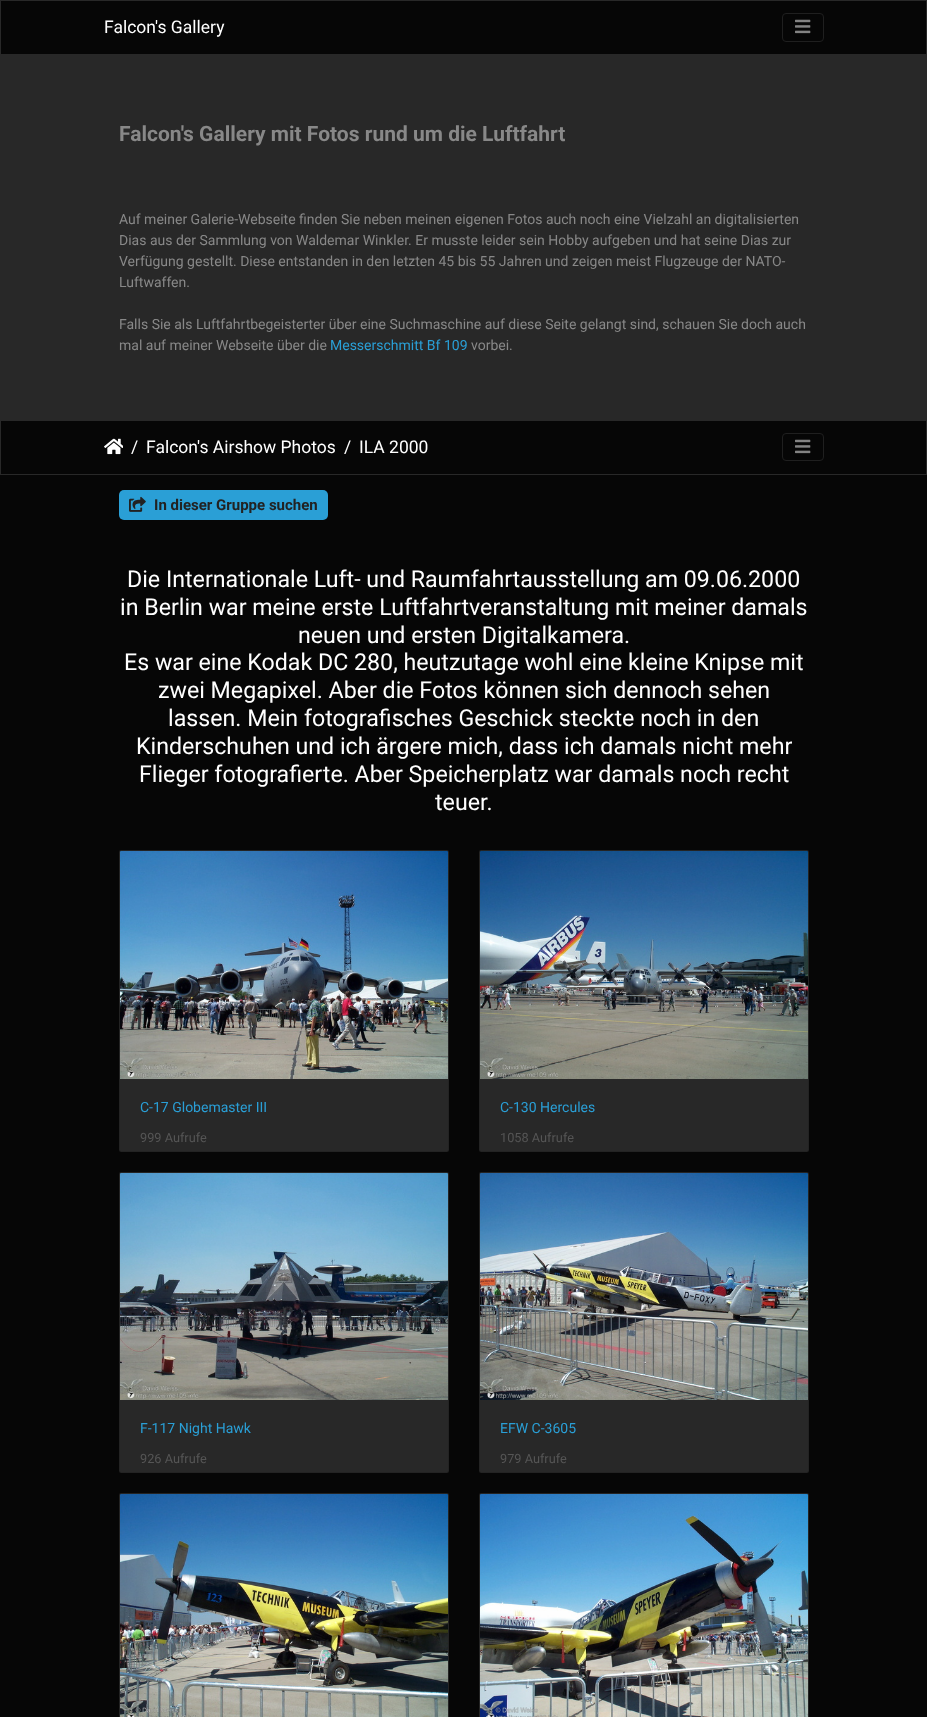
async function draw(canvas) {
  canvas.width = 927;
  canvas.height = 1717;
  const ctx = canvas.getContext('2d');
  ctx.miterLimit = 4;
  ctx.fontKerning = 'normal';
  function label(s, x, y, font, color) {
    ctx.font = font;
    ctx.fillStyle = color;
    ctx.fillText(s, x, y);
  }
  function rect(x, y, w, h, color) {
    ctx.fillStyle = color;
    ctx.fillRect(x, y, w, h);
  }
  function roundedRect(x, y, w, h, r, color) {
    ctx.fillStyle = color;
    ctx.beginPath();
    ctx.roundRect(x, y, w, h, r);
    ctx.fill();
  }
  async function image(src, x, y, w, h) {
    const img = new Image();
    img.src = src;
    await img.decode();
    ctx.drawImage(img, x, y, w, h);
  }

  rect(0, 0, 927, 1717, '#060606');
  ctx.strokeStyle = '#282828';
  ctx.strokeRect(0.5, 0.5, 926, 54);
  label('Falcon\'s Gallery', 104, 33, '17.5px Roboto', '#fff');
  ctx.beginPath();
  ctx.roundRect(782.5, 13.5, 41, 28, 3.5);
  ctx.strokeStyle = '#1f1f1f';
  ctx.stroke();
  await image('assets/img1.png', 795, 19, 16, 15);
  rect(0, 55, 927, 365, '#282828');
  label('Falcon\'s Gallery mit Fotos rund um die Luftfahrt', 119, 141, 'bold 21px Roboto', '#888');
  label('Auf meiner Galerie-Webseite finden Sie neben meinen eigenen Fotos auch noch eine Vielzahl an digitalisierten', 119, 224, '14px Roboto', '#888');
  label('Dias aus der Sammlung von Waldemar Winkler. Er musste leider sein Hobby aufgeben und hat seine Dias zur', 119, 245, '14px Roboto', '#888');
  label('Verfügung gestellt. Diese entstanden in den letzten 45 bis 55 Jahren und zeigen meist Flugzeuge der NATO-', 119, 266, '14px Roboto', '#888');
  label('Luftwaffen.', 119, 287, '14px Roboto', '#888');
  label('Falls Sie als Luftfahrtbegeisterter über eine Suchmaschine auf diese Seite gelangt sind, schauen Sie doch auch', 119, 329, '14px Roboto', '#888');
  label('mal auf meiner Webseite über die', 119, 350, '14px Roboto', '#888');
  label('Messerschmitt Bf 109', 330, 350, '14px Roboto', '#2a9fd6');
  label('vorbei.', 471, 350, '14px Roboto', '#888');
  ctx.strokeStyle = '#282828';
  ctx.strokeRect(0.5, 420.5, 926, 54);
  await image('assets/img2.png', 104, 438, 19, 17);
  label('/', 131, 453, '17.5px Roboto', '#fff');
  label('Falcon\'s Airshow Photos', 146, 453, '17.5px Roboto', '#fff');
  label('/', 344, 453, '17.5px Roboto', '#fff');
  label('ILA 2000', 359, 453, '17.5px Roboto', '#fff');
  ctx.beginPath();
  ctx.roundRect(782.5, 433.5, 41, 27, 3.5);
  ctx.strokeStyle = '#1f1f1f';
  ctx.stroke();
  await image('assets/img1.png', 795, 439, 16, 15);
  roundedRect(119, 490, 209, 30, 5, '#2a9fd6');
  await image('assets/img3.png', 129, 496, 17, 16);
  label('In dieser Gruppe suchen', 154, 510, 'bold 15px Roboto', '#222');
  label('Die Internationale Luft- und Raumfahrtausstellung am 09.06.2000', 127, 587, '23.2px Roboto', '#fff');
  label('in Berlin war meine erste Luftfahrtveranstaltung mit meiner damals', 120, 615, '23.2px Roboto', '#fff');
  label('neuen und ersten Digitalkamera.', 298, 643, '23.2px Roboto', '#fff');
  label('Es war eine Kodak DC 280, heutzutage wohl eine kleine Knipse mit', 124, 670, '23.2px Roboto', '#fff');
  label('zwei Megapixel. Aber die Fotos können sich dennoch sehen', 158, 698, '23.2px Roboto', '#fff');
  label('lassen. Mein fotografisches Geschick steckte noch in den', 168, 726, '23.2px Roboto', '#fff');
  label('Kinderschuhen und ich ärgere mich, dass ich damals nicht mehr', 136, 754, '23.2px Roboto', '#fff');
  label('Flieger fotografierte. Aber Speicherplatz war damals noch recht', 139, 782, '23.2px Roboto', '#fff');
  label('teuer.', 435, 810, '23.2px Roboto', '#fff');
  roundedRect(119, 850, 330, 302, 2, '#282828');
  ctx.beginPath();
  ctx.roundRect(119.5, 850.5, 329, 301, 1.5);
  ctx.strokeStyle = '#0000001f';
  ctx.stroke();
  await image('assets/img4.png', 120, 851, 328, 228);
  label('C-17 Globemaster III', 140, 1112, '14px Roboto', '#2a9fd6');
  label('999 Aufrufe', 140, 1142, '12.75px Roboto', '#555');
  roundedRect(479, 850, 330, 302, 2, '#282828');
  ctx.beginPath();
  ctx.roundRect(479.5, 850.5, 329, 301, 1.5);
  ctx.stroke();
  await image('assets/img5.png', 480, 851, 328, 228);
  label('C-130 Hercules', 500, 1112, '14px Roboto', '#2a9fd6');
  label('1058 Aufrufe', 500, 1142, '12.75px Roboto', '#555');
  roundedRect(119, 1172, 330, 301, 2, '#282828');
  ctx.beginPath();
  ctx.roundRect(119.5, 1172.5, 329, 300, 1.5);
  ctx.stroke();
  await image('assets/img6.png', 120, 1173, 328, 227);
  label('F-117 Night Hawk', 140, 1433, '14px Roboto', '#2a9fd6');
  label('926 Aufrufe', 140, 1463, '12.75px Roboto', '#555');
  roundedRect(479, 1172, 330, 301, 2, '#282828');
  ctx.beginPath();
  ctx.roundRect(479.5, 1172.5, 329, 300, 1.5);
  ctx.stroke();
  await image('assets/img7.png', 480, 1173, 328, 227);
  label('EFW C-3605', 500, 1433, '14px Roboto', '#2a9fd6');
  label('979 Aufrufe', 500, 1463, '12.75px Roboto', '#555');
  roundedRect(119, 1493, 330, 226, 2, '#282828');
  ctx.beginPath();
  ctx.roundRect(119.5, 1493.5, 329, 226, 1.5);
  ctx.stroke();
  await image('assets/img8.png', 120, 1494, 328, 223);
  roundedRect(479, 1493, 330, 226, 2, '#282828');
  ctx.beginPath();
  ctx.roundRect(479.5, 1493.5, 329, 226, 1.5);
  ctx.stroke();
  await image('assets/img9.png', 480, 1494, 328, 223);
}

draw(document.querySelector('canvas'));
